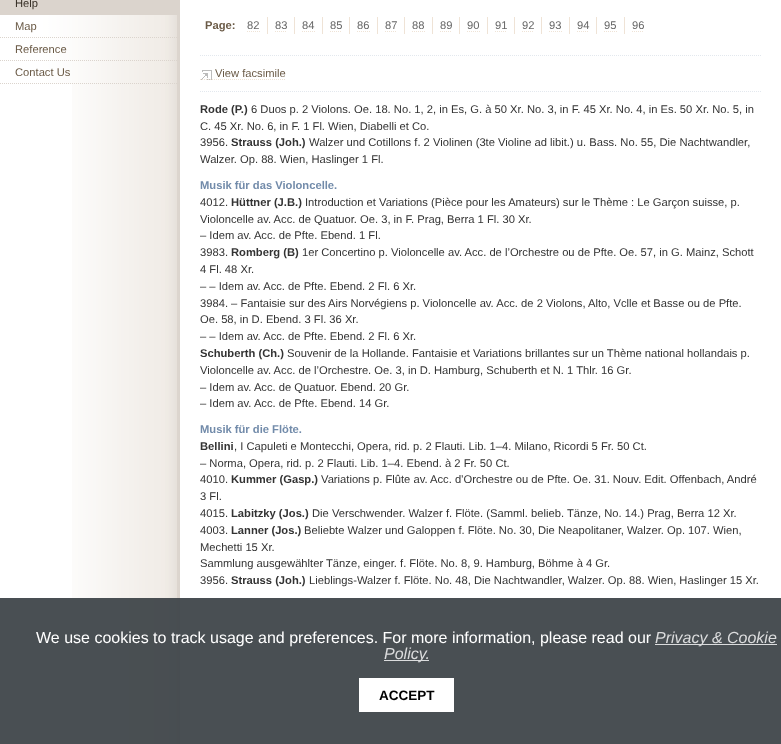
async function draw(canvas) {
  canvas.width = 781;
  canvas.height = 744;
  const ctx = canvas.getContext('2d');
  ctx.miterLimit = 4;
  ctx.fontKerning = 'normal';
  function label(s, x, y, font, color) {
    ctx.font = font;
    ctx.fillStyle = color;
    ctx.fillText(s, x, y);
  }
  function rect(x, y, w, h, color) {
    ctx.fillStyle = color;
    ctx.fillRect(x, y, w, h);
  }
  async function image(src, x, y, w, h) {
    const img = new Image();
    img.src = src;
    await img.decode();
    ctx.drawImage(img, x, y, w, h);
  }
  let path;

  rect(0, 0, 781, 744, '#fff');
  await image('assets/img1.png', 72, 84, 108, 660);
  await image('assets/img2.png', 0, 15, 180, 69);
  rect(0, 0, 180, 15, '#dbd4cd');
  label('Help', 15, 7, '11.2px Liberation Sans', '#372f26');
  path = new Path2D('M0 37.5H180');
  ctx.strokeStyle = '#dbd4cd';
  ctx.setLineDash([1, 1]);
  ctx.stroke(path);
  label('Map', 15, 30, '11.2px Liberation Sans', '#6a5a46');
  path = new Path2D('M0 60.5H180');
  ctx.stroke(path);
  label('Reference', 15, 53, '11.2px Liberation Sans', '#6a5a46');
  path = new Path2D('M0 83.5H180');
  ctx.stroke(path);
  label('Contact Us', 15, 76, '11.2px Liberation Sans', '#6a5a46');
  label('Page:', 205, 29, 'bold 11.2px Liberation Sans', '#6a5a46');
  rect(267, 17, 1, 17, '#efe3d6');
  label('82', 247, 29, '11.2px Liberation Sans', '#666');
  path = new Path2D('M247 31.5H260');
  ctx.strokeStyle = '#efe3d6';
  ctx.stroke(path);
  rect(294, 17, 1, 17, '#efe3d6');
  label('83', 275, 29, '11.2px Liberation Sans', '#666');
  path = new Path2D('M275 31.5H287');
  ctx.stroke(path);
  rect(322, 17, 1, 17, '#efe3d6');
  label('84', 302, 29, '11.2px Liberation Sans', '#666');
  path = new Path2D('M302 31.5H315');
  ctx.stroke(path);
  rect(349, 17, 1, 17, '#efe3d6');
  label('85', 330, 29, '11.2px Liberation Sans', '#666');
  path = new Path2D('M330 31.5H342');
  ctx.stroke(path);
  rect(377, 17, 1, 17, '#efe3d6');
  label('86', 357, 29, '11.2px Liberation Sans', '#666');
  path = new Path2D('M357 31.5H370');
  ctx.stroke(path);
  rect(404, 17, 1, 17, '#efe3d6');
  label('87', 385, 29, '11.2px Liberation Sans', '#666');
  path = new Path2D('M385 31.5H397');
  ctx.stroke(path);
  rect(432, 17, 1, 17, '#efe3d6');
  label('88', 412, 29, '11.2px Liberation Sans', '#666');
  path = new Path2D('M412 31.5H425');
  ctx.stroke(path);
  rect(459, 17, 1, 17, '#efe3d6');
  label('89', 440, 29, '11.2px Liberation Sans', '#666');
  path = new Path2D('M440 31.5H452');
  ctx.stroke(path);
  rect(487, 17, 1, 17, '#efe3d6');
  label('90', 467, 29, '11.2px Liberation Sans', '#666');
  path = new Path2D('M467 31.5H480');
  ctx.stroke(path);
  rect(514, 17, 1, 17, '#efe3d6');
  label('91', 495, 29, '11.2px Liberation Sans', '#666');
  path = new Path2D('M495 31.5H507');
  ctx.stroke(path);
  rect(541, 17, 1, 17, '#efe3d6');
  label('92', 522, 29, '11.2px Liberation Sans', '#666');
  path = new Path2D('M522 31.5H534');
  ctx.stroke(path);
  rect(569, 17, 1, 17, '#efe3d6');
  label('93', 549, 29, '11.2px Liberation Sans', '#666');
  path = new Path2D('M549 31.5H562');
  ctx.stroke(path);
  rect(596, 17, 1, 17, '#efe3d6');
  label('94', 577, 29, '11.2px Liberation Sans', '#666');
  path = new Path2D('M577 31.5H589');
  ctx.stroke(path);
  rect(624, 17, 1, 17, '#efe3d6');
  label('95', 604, 29, '11.2px Liberation Sans', '#666');
  path = new Path2D('M604 31.5H617');
  ctx.stroke(path);
  label('96', 632, 29, '11.2px Liberation Sans', '#666');
  path = new Path2D('M632 31.5H644');
  ctx.stroke(path);
  path = new Path2D('M200 55.5H761');
  ctx.strokeStyle = '#e3e8ee';
  ctx.stroke(path);
  path = new Path2D('M200 91.5H761');
  ctx.stroke(path);
  await image('assets/img3.png', 201, 70, 11, 10);
  label('View facsimile', 215, 77, '11.2px Liberation Sans', '#6a5a46');
  path = new Path2D('M200 79.5H286');
  ctx.strokeStyle = '#efe3d6';
  ctx.stroke(path);
  label('Rode (P.)', 200, 113, 'bold 11.2px Liberation Sans', '#333');
  label('6 Duos p. 2 Violons. Oe. 18. No. 1, 2, in Es, G. à 50 Xr. No. 3, in F. 45 Xr. No. 4, in Es. 50 Xr. No. 5, in', 251, 113, '11.2px Liberation Sans', '#333');
  label('C. 45 Xr. No. 6, in F. 1 Fl. Wien, Diabelli et Co.', 200, 130, '11.2px Liberation Sans', '#333');
  label('3956.', 200, 146, '11.2px Liberation Sans', '#333');
  label('Strauss (Joh.)', 231, 146, 'bold 11.2px Liberation Sans', '#333');
  label('Walzer und Cotillons f. 2 Violinen (3te Violine ad libit.) u. Bass. No. 55, Die Nachtwandler,', 309, 146, '11.2px Liberation Sans', '#333');
  label('Walzer. Op. 88. Wien, Haslinger 1 Fl.', 200, 163, '11.2px Liberation Sans', '#333');
  label('Musik für das Violoncelle.', 200, 189, 'bold 11.2px Liberation Sans', '#728baa');
  label('4012.', 200, 206, '11.2px Liberation Sans', '#333');
  label('Hüttner (J.B.)', 231, 206, 'bold 11.2px Liberation Sans', '#333');
  label('Introduction et Variations (Pièce pour les Amateurs) sur le Thème : Le Garçon suisse, p.', 305, 206, '11.2px Liberation Sans', '#333');
  label('Violoncelle av. Acc. de Quatuor. Oe. 3, in F. Prag, Berra 1 Fl. 30 Xr.', 200, 223, '11.2px Liberation Sans', '#333');
  label('– Idem av. Acc. de Pfte. Ebend. 1 Fl.', 200, 239, '11.2px Liberation Sans', '#333');
  label('3983.', 200, 256, '11.2px Liberation Sans', '#333');
  label('Romberg (B)', 231, 256, 'bold 11.2px Liberation Sans', '#333');
  label('1er Concertino p. Violoncelle av. Acc. de l’Orchestre ou de Pfte. Oe. 57, in G. Mainz, Schott', 302, 256, '11.2px Liberation Sans', '#333');
  label('4 Fl. 48 Xr.', 200, 273, '11.2px Liberation Sans', '#333');
  label('– – Idem av. Acc. de Pfte. Ebend. 2 Fl. 6 Xr.', 200, 290, '11.2px Liberation Sans', '#333');
  label('3984. – Fantaisie sur des Airs Norvégiens p. Violoncelle av. Acc. de 2 Violons, Alto, Vclle et Basse ou de Pfte.', 200, 307, '11.2px Liberation Sans', '#333');
  label('Oe. 58, in D. Ebend. 3 Fl. 36 Xr.', 200, 323, '11.2px Liberation Sans', '#333');
  label('– – Idem av. Acc. de Pfte. Ebend. 2 Fl. 6 Xr.', 200, 340, '11.2px Liberation Sans', '#333');
  label('Schuberth (Ch.)', 200, 357, 'bold 11.2px Liberation Sans', '#333');
  label('Souvenir de la Hollande. Fantaisie et Variations brillantes sur un Thème national hollandais p.', 287, 357, '11.2px Liberation Sans', '#333');
  label('Violoncelle av. Acc. de l’Orchestre. Oe. 3, in D. Hamburg, Schuberth et N. 1 Thlr. 16 Gr.', 200, 374, '11.2px Liberation Sans', '#333');
  label('– Idem av. Acc. de Quatuor. Ebend. 20 Gr.', 200, 391, '11.2px Liberation Sans', '#333');
  label('– Idem av. Acc. de Pfte. Ebend. 14 Gr.', 200, 407, '11.2px Liberation Sans', '#333');
  label('Musik für die Flöte.', 200, 433, 'bold 11.2px Liberation Sans', '#728baa');
  label('Bellini', 200, 450, 'bold 11.2px Liberation Sans', '#333');
  label(', I Capuleti e Montecchi, Opera, rid. p. 2 Flauti. Lib. 1–4. Milano, Ricordi 5 Fr. 50 Ct.', 234, 450, '11.2px Liberation Sans', '#333');
  label('– Norma, Opera, rid. p. 2 Flauti. Lib. 1–4. Ebend. à 2 Fr. 50 Ct.', 200, 467, '11.2px Liberation Sans', '#333');
  label('4010.', 200, 483, '11.2px Liberation Sans', '#333');
  label('Kummer (Gasp.)', 231, 483, 'bold 11.2px Liberation Sans', '#333');
  label('Variations p. Flûte av. Acc. d’Orchestre ou de Pfte. Oe. 31. Nouv. Edit. Offenbach, André', 321, 483, '11.2px Liberation Sans', '#333');
  label('3 Fl.', 200, 500, '11.2px Liberation Sans', '#333');
  label('4015.', 200, 517, '11.2px Liberation Sans', '#333');
  label('Labitzky (Jos.)', 231, 517, 'bold 11.2px Liberation Sans', '#333');
  label('Die Verschwender. Walzer f. Flöte. (Samml. belieb. Tänze, No. 14.) Prag, Berra 12 Xr.', 312, 517, '11.2px Liberation Sans', '#333');
  label('4003.', 200, 534, '11.2px Liberation Sans', '#333');
  label('Lanner (Jos.)', 231, 534, 'bold 11.2px Liberation Sans', '#333');
  label('Beliebte Walzer und Galoppen f. Flöte. No. 30, Die Neapolitaner, Walzer. Op. 107. Wien,', 304, 534, '11.2px Liberation Sans', '#333');
  label('Mechetti 15 Xr.', 200, 551, '11.2px Liberation Sans', '#333');
  label('Sammlung ausgewählter Tänze, einger. f. Flöte. No. 8, 9. Hamburg, Böhme à 4 Gr.', 200, 567, '11.2px Liberation Sans', '#333');
  label('3956.', 200, 584, '11.2px Liberation Sans', '#333');
  label('Strauss (Joh.)', 231, 584, 'bold 11.2px Liberation Sans', '#333');
  label('Lieblings-Walzer f. Flöte. No. 48, Die Nachtwandler, Walzer. Op. 88. Wien, Haslinger 15 Xr.', 309, 584, '11.2px Liberation Sans', '#333');
  rect(0, 598, 781, 146, '#3f464af2');
  label('We use cookies to track usage and preferences. For more information, please read our', 36, 643, '16px Liberation Sans', '#fff');
  rect(655, 644, 122, 1, '#dbdcdd');
  label('Privacy & Cookie', 655, 643, 'italic 16px Liberation Sans', '#dbdcdd');
  rect(384, 660, 45, 1, '#dbdcdd');
  label('Policy.', 384, 659, 'italic 16px Liberation Sans', '#dbdcdd');
  rect(359, 678, 95, 34, '#fff');
  label('ACCEPT', 379, 700, 'bold 13.5px Liberation Sans', '#000');
}

draw(document.querySelector('canvas'));
